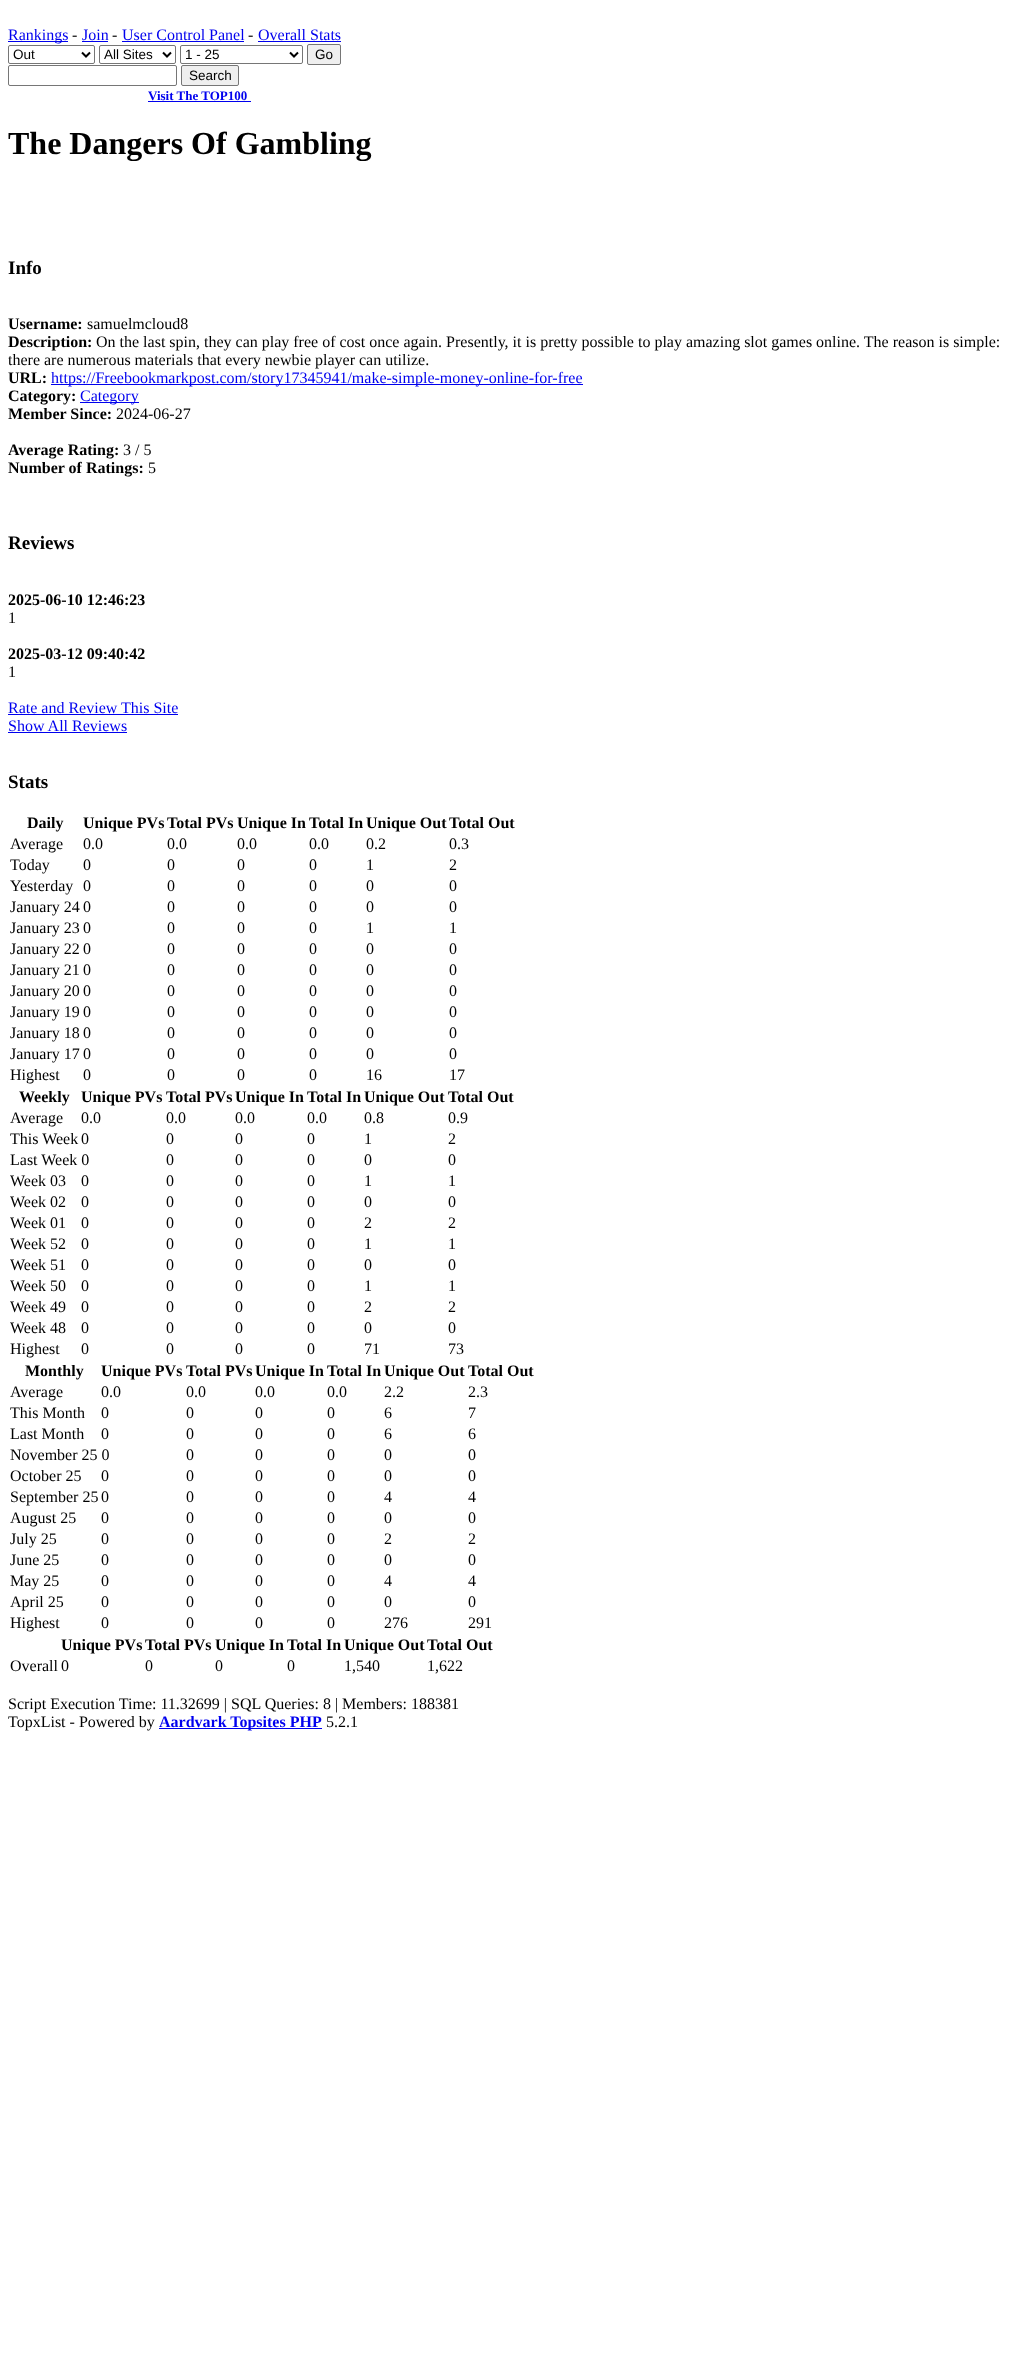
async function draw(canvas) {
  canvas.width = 1012;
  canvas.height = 2354;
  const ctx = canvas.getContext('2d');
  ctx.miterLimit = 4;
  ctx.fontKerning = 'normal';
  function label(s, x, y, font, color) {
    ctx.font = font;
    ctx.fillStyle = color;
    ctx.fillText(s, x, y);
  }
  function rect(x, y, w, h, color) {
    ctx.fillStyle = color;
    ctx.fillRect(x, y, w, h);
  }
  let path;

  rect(0, 0, 1012, 2354, '#fff');
  rect(8, 41, 60, 1, '#00e');
  label('Rankings', 8, 40, '16px Liberation Serif', '#00e');
  label('-', 72, 40, '16px Liberation Serif', '#000');
  label('Join', 82, 40, '16px Liberation Serif', '#00e');
  rect(82, 41, 26, 1, '#00e');
  label('-', 112, 40, '16px Liberation Serif', '#000');
  label('User Control Panel', 122, 40, '16px Liberation Serif', '#00e');
  rect(122, 41, 122, 1, '#00e');
  label('-', 248, 40, '16px Liberation Serif', '#000');
  label('Overall Stats', 258, 40, '16px Liberation Serif', '#00e');
  rect(258, 41, 83, 1, '#00e');
  ctx.beginPath();
  ctx.roundRect(8.5, 45.5, 86, 18, 1.5);
  ctx.strokeStyle = '#767676';
  ctx.stroke();
  path = new Path2D('M82 52.5L86 56.5L90 52.5');
  ctx.strokeStyle = '#000';
  ctx.lineWidth = 2;
  ctx.stroke(path);
  label('Out', 13, 59, '13.5px Liberation Sans', '#000');
  ctx.beginPath();
  ctx.roundRect(99.5, 45.5, 76, 18, 1.5);
  ctx.strokeStyle = '#767676';
  ctx.lineWidth = 1;
  ctx.stroke();
  path = new Path2D('M163 52.5L167 56.5L171 52.5');
  ctx.strokeStyle = '#000';
  ctx.lineWidth = 2;
  ctx.stroke(path);
  label('All Sites', 104, 59, '13.5px Liberation Sans', '#000');
  ctx.beginPath();
  ctx.roundRect(180.5, 45.5, 122, 18, 1.5);
  ctx.strokeStyle = '#767676';
  ctx.lineWidth = 1;
  ctx.stroke();
  path = new Path2D('M290 52.5L294 56.5L298 52.5');
  ctx.strokeStyle = '#000';
  ctx.lineWidth = 2;
  ctx.stroke(path);
  label('1 - 25', 185, 59, '13.5px Liberation Sans', '#000');
  ctx.fillStyle = '#efefef';
  ctx.beginPath();
  ctx.roundRect(307.5, 44.5, 33, 20, 1.5);
  ctx.fill();
  ctx.strokeStyle = '#767676';
  ctx.lineWidth = 1;
  ctx.stroke();
  label('Go', 315, 59, '13.5px Liberation Sans', '#000');
  ctx.beginPath();
  ctx.roundRect(8.5, 65.5, 168, 20, 1.5);
  ctx.stroke();
  ctx.fillStyle = '#efefef';
  ctx.beginPath();
  ctx.roundRect(181.5, 65.5, 57, 20, 1.5);
  ctx.fill();
  ctx.stroke();
  label('Search', 189, 80, '13.5px Liberation Sans', '#000');
  label('Visit The TOP100', 148, 100, 'bold 13px Liberation Serif', '#00e');
  rect(148, 101, 103, 1, '#00e');
  label('The Dangers Of Gambling', 8, 154, 'bold 32px Liberation Serif', '#000');
  label('Info', 8, 274, 'bold 19px Liberation Serif', '#000');
  label('Username:', 8, 329, 'bold 16px Liberation Serif', '#000');
  label('samuelmcloud8', 87, 329, '16px Liberation Serif', '#000');
  label('Description:', 8, 347, 'bold 16px Liberation Serif', '#000');
  label('On the last spin, they can play free of cost once again. Presently, it is pretty possible to play amazing slot games online. The reason is simple:', 96, 347, '16px Liberation Serif', '#000');
  label('there are numerous materials that every newbie player can utilize.', 8, 365, '16px Liberation Serif', '#000');
  label('URL:', 8, 383, 'bold 16px Liberation Serif', '#000');
  rect(51, 384, 532, 1, '#00e');
  label('https://Freebookmarkpost.com/story17345941/make-simple-money-online-for-free', 51, 383, '16px Liberation Serif', '#00e');
  label('Category:', 8, 401, 'bold 16px Liberation Serif', '#000');
  rect(80, 402, 59, 1, '#00e');
  label('Category', 80, 401, '16px Liberation Serif', '#00e');
  label('Member Since:', 8, 419, 'bold 16px Liberation Serif', '#000');
  label('2024-06-27', 116, 419, '16px Liberation Serif', '#000');
  label('Average Rating:', 8, 455, 'bold 16px Liberation Serif', '#000');
  label('3 / 5', 123, 455, '16px Liberation Serif', '#000');
  label('Number of Ratings:', 8, 473, 'bold 16px Liberation Serif', '#000');
  label('5', 148, 473, '16px Liberation Serif', '#000');
  label('Reviews', 8, 549, 'bold 19px Liberation Serif', '#000');
  label('2025-06-10 12:46:23', 8, 605, 'bold 16px Liberation Serif', '#000');
  label('1', 8, 623, '16px Liberation Serif', '#000');
  label('2025-03-12 09:40:42', 8, 659, 'bold 16px Liberation Serif', '#000');
  label('1', 8, 677, '16px Liberation Serif', '#000');
  label('Rate and Review This Site', 8, 713, '16px Liberation Serif', '#00e');
  rect(8, 714, 170, 1, '#00e');
  label('Show All Reviews', 8, 731, '16px Liberation Serif', '#00e');
  rect(8, 732, 119, 1, '#00e');
  label('Stats', 8, 788, 'bold 19px Liberation Serif', '#000');
  label('Daily', 27, 828, 'bold 16px Liberation Serif', '#000');
  label('Unique PVs', 83, 828, 'bold 16px Liberation Serif', '#000');
  label('Total PVs', 167, 828, 'bold 16px Liberation Serif', '#000');
  label('Unique In', 237, 828, 'bold 16px Liberation Serif', '#000');
  label('Total In', 309, 828, 'bold 16px Liberation Serif', '#000');
  label('Unique Out', 366, 828, 'bold 16px Liberation Serif', '#000');
  label('Total Out', 449, 828, 'bold 16px Liberation Serif', '#000');
  label('Average', 10, 849, '16px Liberation Serif', '#000');
  label('0.0', 83, 849, '16px Liberation Serif', '#000');
  label('0.0', 167, 849, '16px Liberation Serif', '#000');
  label('0.0', 237, 849, '16px Liberation Serif', '#000');
  label('0.0', 309, 849, '16px Liberation Serif', '#000');
  label('0.2', 366, 849, '16px Liberation Serif', '#000');
  label('0.3', 449, 849, '16px Liberation Serif', '#000');
  label('Today', 10, 870, '16px Liberation Serif', '#000');
  label('0', 83, 870, '16px Liberation Serif', '#000');
  label('0', 167, 870, '16px Liberation Serif', '#000');
  label('0', 237, 870, '16px Liberation Serif', '#000');
  label('0', 309, 870, '16px Liberation Serif', '#000');
  label('1', 366, 870, '16px Liberation Serif', '#000');
  label('2', 449, 870, '16px Liberation Serif', '#000');
  label('Yesterday', 10, 891, '16px Liberation Serif', '#000');
  label('0', 83, 891, '16px Liberation Serif', '#000');
  label('0', 167, 891, '16px Liberation Serif', '#000');
  label('0', 237, 891, '16px Liberation Serif', '#000');
  label('0', 309, 891, '16px Liberation Serif', '#000');
  label('0', 366, 891, '16px Liberation Serif', '#000');
  label('0', 449, 891, '16px Liberation Serif', '#000');
  label('January 24', 10, 912, '16px Liberation Serif', '#000');
  label('0', 83, 912, '16px Liberation Serif', '#000');
  label('0', 167, 912, '16px Liberation Serif', '#000');
  label('0', 237, 912, '16px Liberation Serif', '#000');
  label('0', 309, 912, '16px Liberation Serif', '#000');
  label('0', 366, 912, '16px Liberation Serif', '#000');
  label('0', 449, 912, '16px Liberation Serif', '#000');
  label('January 23', 10, 933, '16px Liberation Serif', '#000');
  label('0', 83, 933, '16px Liberation Serif', '#000');
  label('0', 167, 933, '16px Liberation Serif', '#000');
  label('0', 237, 933, '16px Liberation Serif', '#000');
  label('0', 309, 933, '16px Liberation Serif', '#000');
  label('1', 366, 933, '16px Liberation Serif', '#000');
  label('1', 449, 933, '16px Liberation Serif', '#000');
  label('January 22', 10, 954, '16px Liberation Serif', '#000');
  label('0', 83, 954, '16px Liberation Serif', '#000');
  label('0', 167, 954, '16px Liberation Serif', '#000');
  label('0', 237, 954, '16px Liberation Serif', '#000');
  label('0', 309, 954, '16px Liberation Serif', '#000');
  label('0', 366, 954, '16px Liberation Serif', '#000');
  label('0', 449, 954, '16px Liberation Serif', '#000');
  label('January 21', 10, 975, '16px Liberation Serif', '#000');
  label('0', 83, 975, '16px Liberation Serif', '#000');
  label('0', 167, 975, '16px Liberation Serif', '#000');
  label('0', 237, 975, '16px Liberation Serif', '#000');
  label('0', 309, 975, '16px Liberation Serif', '#000');
  label('0', 366, 975, '16px Liberation Serif', '#000');
  label('0', 449, 975, '16px Liberation Serif', '#000');
  label('January 20', 10, 996, '16px Liberation Serif', '#000');
  label('0', 83, 996, '16px Liberation Serif', '#000');
  label('0', 167, 996, '16px Liberation Serif', '#000');
  label('0', 237, 996, '16px Liberation Serif', '#000');
  label('0', 309, 996, '16px Liberation Serif', '#000');
  label('0', 366, 996, '16px Liberation Serif', '#000');
  label('0', 449, 996, '16px Liberation Serif', '#000');
  label('January 19', 10, 1017, '16px Liberation Serif', '#000');
  label('0', 83, 1017, '16px Liberation Serif', '#000');
  label('0', 167, 1017, '16px Liberation Serif', '#000');
  label('0', 237, 1017, '16px Liberation Serif', '#000');
  label('0', 309, 1017, '16px Liberation Serif', '#000');
  label('0', 366, 1017, '16px Liberation Serif', '#000');
  label('0', 449, 1017, '16px Liberation Serif', '#000');
  label('January 18', 10, 1038, '16px Liberation Serif', '#000');
  label('0', 83, 1038, '16px Liberation Serif', '#000');
  label('0', 167, 1038, '16px Liberation Serif', '#000');
  label('0', 237, 1038, '16px Liberation Serif', '#000');
  label('0', 309, 1038, '16px Liberation Serif', '#000');
  label('0', 366, 1038, '16px Liberation Serif', '#000');
  label('0', 449, 1038, '16px Liberation Serif', '#000');
  label('January 17', 10, 1059, '16px Liberation Serif', '#000');
  label('0', 83, 1059, '16px Liberation Serif', '#000');
  label('0', 167, 1059, '16px Liberation Serif', '#000');
  label('0', 237, 1059, '16px Liberation Serif', '#000');
  label('0', 309, 1059, '16px Liberation Serif', '#000');
  label('0', 366, 1059, '16px Liberation Serif', '#000');
  label('0', 449, 1059, '16px Liberation Serif', '#000');
  label('Highest', 10, 1080, '16px Liberation Serif', '#000');
  label('0', 83, 1080, '16px Liberation Serif', '#000');
  label('0', 167, 1080, '16px Liberation Serif', '#000');
  label('0', 237, 1080, '16px Liberation Serif', '#000');
  label('0', 309, 1080, '16px Liberation Serif', '#000');
  label('16', 366, 1080, '16px Liberation Serif', '#000');
  label('17', 449, 1080, '16px Liberation Serif', '#000');
  label('Weekly', 19, 1102, 'bold 16px Liberation Serif', '#000');
  label('Unique PVs', 81, 1102, 'bold 16px Liberation Serif', '#000');
  label('Total PVs', 166, 1102, 'bold 16px Liberation Serif', '#000');
  label('Unique In', 235, 1102, 'bold 16px Liberation Serif', '#000');
  label('Total In', 307, 1102, 'bold 16px Liberation Serif', '#000');
  label('Unique Out', 364, 1102, 'bold 16px Liberation Serif', '#000');
  label('Total Out', 448, 1102, 'bold 16px Liberation Serif', '#000');
  label('Average', 10, 1123, '16px Liberation Serif', '#000');
  label('0.0', 81, 1123, '16px Liberation Serif', '#000');
  label('0.0', 166, 1123, '16px Liberation Serif', '#000');
  label('0.0', 235, 1123, '16px Liberation Serif', '#000');
  label('0.0', 307, 1123, '16px Liberation Serif', '#000');
  label('0.8', 364, 1123, '16px Liberation Serif', '#000');
  label('0.9', 448, 1123, '16px Liberation Serif', '#000');
  label('This Week', 10, 1144, '16px Liberation Serif', '#000');
  label('0', 81, 1144, '16px Liberation Serif', '#000');
  label('0', 166, 1144, '16px Liberation Serif', '#000');
  label('0', 235, 1144, '16px Liberation Serif', '#000');
  label('0', 307, 1144, '16px Liberation Serif', '#000');
  label('1', 364, 1144, '16px Liberation Serif', '#000');
  label('2', 448, 1144, '16px Liberation Serif', '#000');
  label('Last Week 0', 10, 1165, '16px Liberation Serif', '#000');
  label('0', 166, 1165, '16px Liberation Serif', '#000');
  label('0', 235, 1165, '16px Liberation Serif', '#000');
  label('0', 307, 1165, '16px Liberation Serif', '#000');
  label('0', 364, 1165, '16px Liberation Serif', '#000');
  label('0', 448, 1165, '16px Liberation Serif', '#000');
  label('Week 03', 10, 1186, '16px Liberation Serif', '#000');
  label('0', 81, 1186, '16px Liberation Serif', '#000');
  label('0', 166, 1186, '16px Liberation Serif', '#000');
  label('0', 235, 1186, '16px Liberation Serif', '#000');
  label('0', 307, 1186, '16px Liberation Serif', '#000');
  label('1', 364, 1186, '16px Liberation Serif', '#000');
  label('1', 448, 1186, '16px Liberation Serif', '#000');
  label('Week 02', 10, 1207, '16px Liberation Serif', '#000');
  label('0', 81, 1207, '16px Liberation Serif', '#000');
  label('0', 166, 1207, '16px Liberation Serif', '#000');
  label('0', 235, 1207, '16px Liberation Serif', '#000');
  label('0', 307, 1207, '16px Liberation Serif', '#000');
  label('0', 364, 1207, '16px Liberation Serif', '#000');
  label('0', 448, 1207, '16px Liberation Serif', '#000');
  label('Week 01', 10, 1228, '16px Liberation Serif', '#000');
  label('0', 81, 1228, '16px Liberation Serif', '#000');
  label('0', 166, 1228, '16px Liberation Serif', '#000');
  label('0', 235, 1228, '16px Liberation Serif', '#000');
  label('0', 307, 1228, '16px Liberation Serif', '#000');
  label('2', 364, 1228, '16px Liberation Serif', '#000');
  label('2', 448, 1228, '16px Liberation Serif', '#000');
  label('Week 52', 10, 1249, '16px Liberation Serif', '#000');
  label('0', 81, 1249, '16px Liberation Serif', '#000');
  label('0', 166, 1249, '16px Liberation Serif', '#000');
  label('0', 235, 1249, '16px Liberation Serif', '#000');
  label('0', 307, 1249, '16px Liberation Serif', '#000');
  label('1', 364, 1249, '16px Liberation Serif', '#000');
  label('1', 448, 1249, '16px Liberation Serif', '#000');
  label('Week 51', 10, 1270, '16px Liberation Serif', '#000');
  label('0', 81, 1270, '16px Liberation Serif', '#000');
  label('0', 166, 1270, '16px Liberation Serif', '#000');
  label('0', 235, 1270, '16px Liberation Serif', '#000');
  label('0', 307, 1270, '16px Liberation Serif', '#000');
  label('0', 364, 1270, '16px Liberation Serif', '#000');
  label('0', 448, 1270, '16px Liberation Serif', '#000');
  label('Week 50', 10, 1291, '16px Liberation Serif', '#000');
  label('0', 81, 1291, '16px Liberation Serif', '#000');
  label('0', 166, 1291, '16px Liberation Serif', '#000');
  label('0', 235, 1291, '16px Liberation Serif', '#000');
  label('0', 307, 1291, '16px Liberation Serif', '#000');
  label('1', 364, 1291, '16px Liberation Serif', '#000');
  label('1', 448, 1291, '16px Liberation Serif', '#000');
  label('Week 49', 10, 1312, '16px Liberation Serif', '#000');
  label('0', 81, 1312, '16px Liberation Serif', '#000');
  label('0', 166, 1312, '16px Liberation Serif', '#000');
  label('0', 235, 1312, '16px Liberation Serif', '#000');
  label('0', 307, 1312, '16px Liberation Serif', '#000');
  label('2', 364, 1312, '16px Liberation Serif', '#000');
  label('2', 448, 1312, '16px Liberation Serif', '#000');
  label('Week 48', 10, 1333, '16px Liberation Serif', '#000');
  label('0', 81, 1333, '16px Liberation Serif', '#000');
  label('0', 166, 1333, '16px Liberation Serif', '#000');
  label('0', 235, 1333, '16px Liberation Serif', '#000');
  label('0', 307, 1333, '16px Liberation Serif', '#000');
  label('0', 364, 1333, '16px Liberation Serif', '#000');
  label('0', 448, 1333, '16px Liberation Serif', '#000');
  label('Highest', 10, 1354, '16px Liberation Serif', '#000');
  label('0', 81, 1354, '16px Liberation Serif', '#000');
  label('0', 166, 1354, '16px Liberation Serif', '#000');
  label('0', 235, 1354, '16px Liberation Serif', '#000');
  label('0', 307, 1354, '16px Liberation Serif', '#000');
  label('71', 364, 1354, '16px Liberation Serif', '#000');
  label('73', 448, 1354, '16px Liberation Serif', '#000');
  label('Monthly', 25, 1376, 'bold 16px Liberation Serif', '#000');
  label('Unique PVs', 101, 1376, 'bold 16px Liberation Serif', '#000');
  label('Total PVs', 186, 1376, 'bold 16px Liberation Serif', '#000');
  label('Unique In', 255, 1376, 'bold 16px Liberation Serif', '#000');
  label('Total In', 327, 1376, 'bold 16px Liberation Serif', '#000');
  label('Unique Out', 384, 1376, 'bold 16px Liberation Serif', '#000');
  label('Total Out', 468, 1376, 'bold 16px Liberation Serif', '#000');
  label('Average', 10, 1397, '16px Liberation Serif', '#000');
  label('0.0', 101, 1397, '16px Liberation Serif', '#000');
  label('0.0', 186, 1397, '16px Liberation Serif', '#000');
  label('0.0', 255, 1397, '16px Liberation Serif', '#000');
  label('0.0', 327, 1397, '16px Liberation Serif', '#000');
  label('2.2', 384, 1397, '16px Liberation Serif', '#000');
  label('2.3', 468, 1397, '16px Liberation Serif', '#000');
  label('This Month', 10, 1418, '16px Liberation Serif', '#000');
  label('0', 101, 1418, '16px Liberation Serif', '#000');
  label('0', 186, 1418, '16px Liberation Serif', '#000');
  label('0', 255, 1418, '16px Liberation Serif', '#000');
  label('0', 327, 1418, '16px Liberation Serif', '#000');
  label('6', 384, 1418, '16px Liberation Serif', '#000');
  label('7', 468, 1418, '16px Liberation Serif', '#000');
  label('Last Month', 10, 1439, '16px Liberation Serif', '#000');
  label('0', 101, 1439, '16px Liberation Serif', '#000');
  label('0', 186, 1439, '16px Liberation Serif', '#000');
  label('0', 255, 1439, '16px Liberation Serif', '#000');
  label('0', 327, 1439, '16px Liberation Serif', '#000');
  label('6', 384, 1439, '16px Liberation Serif', '#000');
  label('6', 468, 1439, '16px Liberation Serif', '#000');
  label('November 25 0', 10, 1460, '16px Liberation Serif', '#000');
  label('0', 186, 1460, '16px Liberation Serif', '#000');
  label('0', 255, 1460, '16px Liberation Serif', '#000');
  label('0', 327, 1460, '16px Liberation Serif', '#000');
  label('0', 384, 1460, '16px Liberation Serif', '#000');
  label('0', 468, 1460, '16px Liberation Serif', '#000');
  label('October 25', 10, 1481, '16px Liberation Serif', '#000');
  label('0', 101, 1481, '16px Liberation Serif', '#000');
  label('0', 186, 1481, '16px Liberation Serif', '#000');
  label('0', 255, 1481, '16px Liberation Serif', '#000');
  label('0', 327, 1481, '16px Liberation Serif', '#000');
  label('0', 384, 1481, '16px Liberation Serif', '#000');
  label('0', 468, 1481, '16px Liberation Serif', '#000');
  label('September 25', 10, 1502, '16px Liberation Serif', '#000');
  label('0', 101, 1502, '16px Liberation Serif', '#000');
  label('0', 186, 1502, '16px Liberation Serif', '#000');
  label('0', 255, 1502, '16px Liberation Serif', '#000');
  label('0', 327, 1502, '16px Liberation Serif', '#000');
  label('4', 384, 1502, '16px Liberation Serif', '#000');
  label('4', 468, 1502, '16px Liberation Serif', '#000');
  label('August 25', 10, 1523, '16px Liberation Serif', '#000');
  label('0', 101, 1523, '16px Liberation Serif', '#000');
  label('0', 186, 1523, '16px Liberation Serif', '#000');
  label('0', 255, 1523, '16px Liberation Serif', '#000');
  label('0', 327, 1523, '16px Liberation Serif', '#000');
  label('0', 384, 1523, '16px Liberation Serif', '#000');
  label('0', 468, 1523, '16px Liberation Serif', '#000');
  label('July 25', 10, 1544, '16px Liberation Serif', '#000');
  label('0', 101, 1544, '16px Liberation Serif', '#000');
  label('0', 186, 1544, '16px Liberation Serif', '#000');
  label('0', 255, 1544, '16px Liberation Serif', '#000');
  label('0', 327, 1544, '16px Liberation Serif', '#000');
  label('2', 384, 1544, '16px Liberation Serif', '#000');
  label('2', 468, 1544, '16px Liberation Serif', '#000');
  label('June 25', 10, 1565, '16px Liberation Serif', '#000');
  label('0', 101, 1565, '16px Liberation Serif', '#000');
  label('0', 186, 1565, '16px Liberation Serif', '#000');
  label('0', 255, 1565, '16px Liberation Serif', '#000');
  label('0', 327, 1565, '16px Liberation Serif', '#000');
  label('0', 384, 1565, '16px Liberation Serif', '#000');
  label('0', 468, 1565, '16px Liberation Serif', '#000');
  label('May 25', 10, 1586, '16px Liberation Serif', '#000');
  label('0', 101, 1586, '16px Liberation Serif', '#000');
  label('0', 186, 1586, '16px Liberation Serif', '#000');
  label('0', 255, 1586, '16px Liberation Serif', '#000');
  label('0', 327, 1586, '16px Liberation Serif', '#000');
  label('4', 384, 1586, '16px Liberation Serif', '#000');
  label('4', 468, 1586, '16px Liberation Serif', '#000');
  label('April 25', 10, 1607, '16px Liberation Serif', '#000');
  label('0', 101, 1607, '16px Liberation Serif', '#000');
  label('0', 186, 1607, '16px Liberation Serif', '#000');
  label('0', 255, 1607, '16px Liberation Serif', '#000');
  label('0', 327, 1607, '16px Liberation Serif', '#000');
  label('0', 384, 1607, '16px Liberation Serif', '#000');
  label('0', 468, 1607, '16px Liberation Serif', '#000');
  label('Highest', 10, 1628, '16px Liberation Serif', '#000');
  label('0', 101, 1628, '16px Liberation Serif', '#000');
  label('0', 186, 1628, '16px Liberation Serif', '#000');
  label('0', 255, 1628, '16px Liberation Serif', '#000');
  label('0', 327, 1628, '16px Liberation Serif', '#000');
  label('276', 384, 1628, '16px Liberation Serif', '#000');
  label('291', 468, 1628, '16px Liberation Serif', '#000');
  label('Unique PVs', 61, 1650, 'bold 16px Liberation Serif', '#000');
  label('Total PVs', 145, 1650, 'bold 16px Liberation Serif', '#000');
  label('Unique In', 215, 1650, 'bold 16px Liberation Serif', '#000');
  label('Total In', 287, 1650, 'bold 16px Liberation Serif', '#000');
  label('Unique Out', 344, 1650, 'bold 16px Liberation Serif', '#000');
  label('Total Out', 427, 1650, 'bold 16px Liberation Serif', '#000');
  label('Overall', 10, 1671, '16px Liberation Serif', '#000');
  label('0', 61, 1671, '16px Liberation Serif', '#000');
  label('0', 145, 1671, '16px Liberation Serif', '#000');
  label('0', 215, 1671, '16px Liberation Serif', '#000');
  label('0', 287, 1671, '16px Liberation Serif', '#000');
  label('1,540', 344, 1671, '16px Liberation Serif', '#000');
  label('1,622', 427, 1671, '16px Liberation Serif', '#000');
  label('Script Execution Time: 11.32699 | SQL Queries: 8 | Members: 188381', 8, 1709, '16px Liberation Serif', '#000');
  label('TopxList - Powered by', 8, 1727, '16px Liberation Serif', '#000');
  rect(159, 1728, 163, 1, '#00e');
  label('Aardvark Topsites PHP', 159, 1727, 'bold 16px Liberation Serif', '#00e');
  label('5.2.1', 326, 1727, '16px Liberation Serif', '#000');
}

draw(document.querySelector('canvas'));
